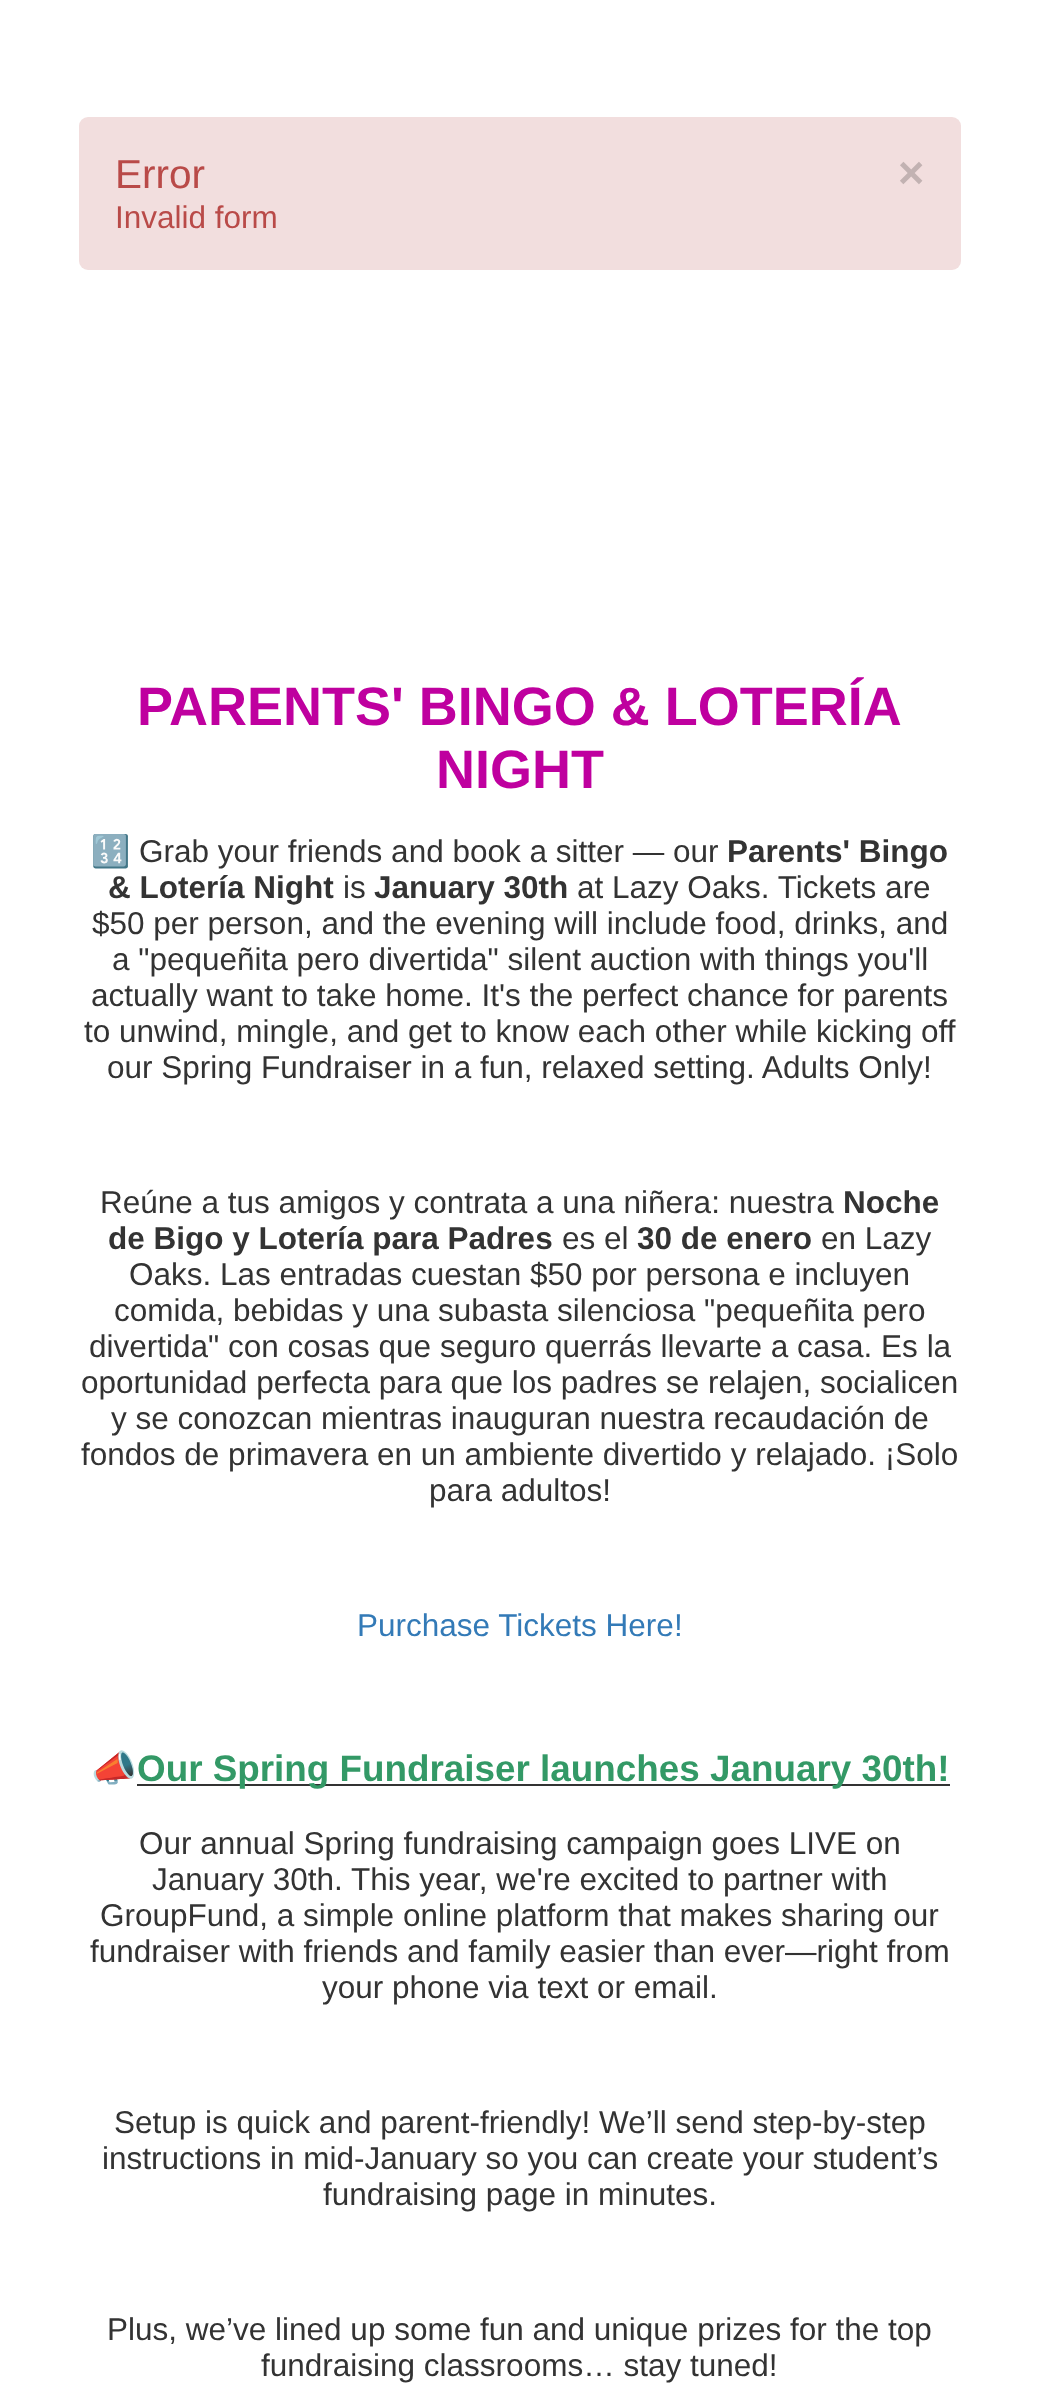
async function draw(canvas) {
  canvas.width = 1039;
  canvas.height = 2400;
  const ctx = canvas.getContext('2d');
  ctx.miterLimit = 4;
  ctx.fontKerning = 'normal';
  function label(s, x, y, font, color) {
    ctx.font = font;
    ctx.fillStyle = color;
    ctx.fillText(s, x, y);
  }
  function rect(x, y, w, h, color) {
    ctx.fillStyle = color;
    ctx.fillRect(x, y, w, h);
  }
  function roundedRect(x, y, w, h, r, color) {
    ctx.fillStyle = color;
    ctx.beginPath();
    ctx.roundRect(x, y, w, h, r);
    ctx.fill();
  }

  rect(0, 0, 1039, 2400, '#fff');
  roundedRect(79, 117, 882, 153, 9, '#f2dede');
  label('Error', 115, 188, '40.5px Liberation Sans', '#b94a48');
  label('×', 898, 188, 'bold 45px Liberation Sans', '#c2b2b2');
  label('Invalid form', 115, 228, '31.5px Liberation Sans', '#b94a48');
  label('PARENTS\' BINGO & LOTERÍA', 137, 725, 'bold 54px Liberation Sans', '#bf009f');
  label('NIGHT', 436, 788, 'bold 54px Liberation Sans', '#bf009f');
  label('🔢', 91, 862, '31.5px Noto Color Emoji', '#333');
  label('Grab your friends and book a sitter — our', 139, 862, '31.5px Liberation Sans', '#333');
  label('Parents\' Bingo', 727, 862, 'bold 31.5px Liberation Sans', '#333');
  label('& Lotería Night', 108, 898, 'bold 31.5px Liberation Sans', '#333');
  label('is', 343, 898, '31.5px Liberation Sans', '#333');
  label('January 30th', 374, 898, 'bold 31.5px Liberation Sans', '#333');
  label('at Lazy Oaks. Tickets are', 577, 898, '31.5px Liberation Sans', '#333');
  label('$50 per person, and the evening will include food, drinks, and', 92, 934, '31.5px Liberation Sans', '#333');
  label('a "pequeñita pero divertida" silent auction with things you\'ll', 112, 970, '31.5px Liberation Sans', '#333');
  label('actually want to take home. It\'s the perfect chance for parents', 91, 1006, '31.5px Liberation Sans', '#333');
  label('to unwind, mingle, and get to know each other while kicking off', 84, 1042, '31.5px Liberation Sans', '#333');
  label('our Spring Fundraiser in a fun, relaxed setting. Adults Only!', 107, 1078, '31.5px Liberation Sans', '#333');
  label('Reúne a tus amigos y contrata a una niñera: nuestra', 100, 1213, '31.5px Liberation Sans', '#333');
  label('Noche', 843, 1213, 'bold 31.5px Liberation Sans', '#333');
  label('de Bigo y Lotería para Padres', 108, 1249, 'bold 31.5px Liberation Sans', '#333');
  label('es el', 562, 1249, '31.5px Liberation Sans', '#333');
  label('30 de enero', 637, 1249, 'bold 31.5px Liberation Sans', '#333');
  label('en Lazy', 821, 1249, '31.5px Liberation Sans', '#333');
  label('Oaks. Las entradas cuestan $50 por persona e incluyen', 129, 1285, '31.5px Liberation Sans', '#333');
  label('comida, bebidas y una subasta silenciosa "pequeñita pero', 114, 1321, '31.5px Liberation Sans', '#333');
  label('divertida" con cosas que seguro querrás llevarte a casa. Es la', 89, 1357, '31.5px Liberation Sans', '#333');
  label('oportunidad perfecta para que los padres se relajen, socialicen', 81, 1393, '31.5px Liberation Sans', '#333');
  label('y se conozcan mientras inauguran nuestra recaudación de', 111, 1429, '31.5px Liberation Sans', '#333');
  label('fondos de primavera en un ambiente divertido y relajado. ¡Solo', 81, 1465, '31.5px Liberation Sans', '#333');
  label('para adultos!', 429, 1501, '31.5px Liberation Sans', '#333');
  label('Purchase Tickets Here!', 357, 1636, '31.5px Liberation Sans', '#337ab7');
  label('📣', 91, 1781, 'bold 36.85px Noto Color Emoji', '#396');
  rect(137, 1784, 813, 2, '#333');
  label('Our Spring Fundraiser launches January 30th!', 137, 1781, 'bold 36.85px Liberation Sans', '#396');
  label('Our annual Spring fundraising campaign goes LIVE on', 139, 1854, '31.5px Liberation Sans', '#333');
  label('January 30th. This year, we\'re excited to partner with', 152, 1890, '31.5px Liberation Sans', '#333');
  label('GroupFund, a simple online platform that makes sharing our', 100, 1926, '31.5px Liberation Sans', '#333');
  label('fundraiser with friends and family easier than ever—right from', 90, 1962, '31.5px Liberation Sans', '#333');
  label('your phone via text or email.', 322, 1998, '31.5px Liberation Sans', '#333');
  label('Setup is quick and parent-friendly! We’ll send step-by-step', 114, 2133, '31.5px Liberation Sans', '#333');
  label('instructions in mid-January so you can create your student’s', 102, 2169, '31.5px Liberation Sans', '#333');
  label('fundraising page in minutes.', 323, 2205, '31.5px Liberation Sans', '#333');
  label('Plus, we’ve lined up some fun and unique prizes for the top', 107, 2340, '31.5px Liberation Sans', '#333');
  label('fundraising classrooms… stay tuned!', 261, 2376, '31.5px Liberation Sans', '#333');
}

draw(document.querySelector('canvas'));
